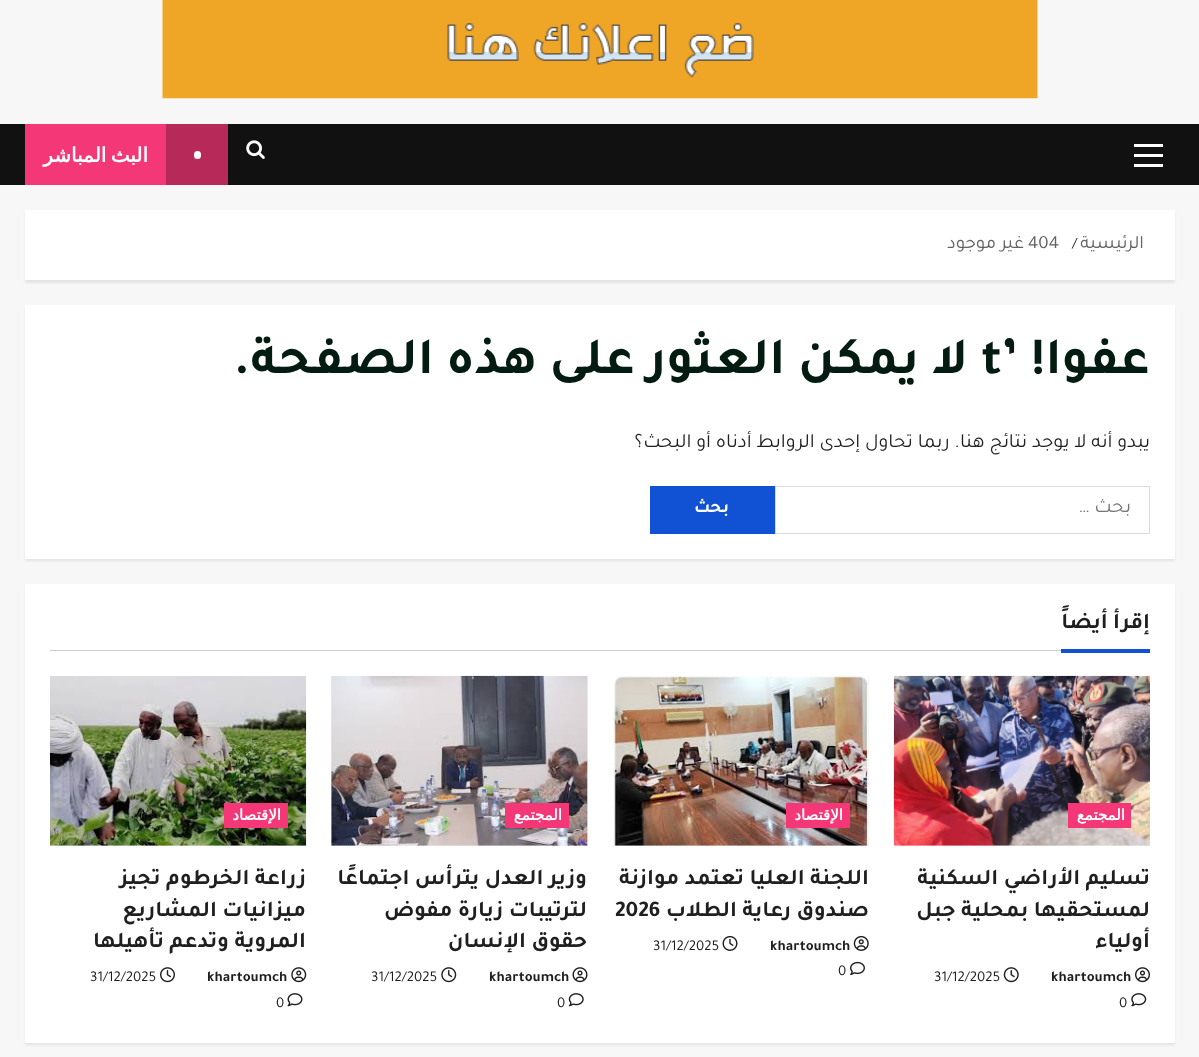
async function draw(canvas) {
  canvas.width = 1199;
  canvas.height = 1057;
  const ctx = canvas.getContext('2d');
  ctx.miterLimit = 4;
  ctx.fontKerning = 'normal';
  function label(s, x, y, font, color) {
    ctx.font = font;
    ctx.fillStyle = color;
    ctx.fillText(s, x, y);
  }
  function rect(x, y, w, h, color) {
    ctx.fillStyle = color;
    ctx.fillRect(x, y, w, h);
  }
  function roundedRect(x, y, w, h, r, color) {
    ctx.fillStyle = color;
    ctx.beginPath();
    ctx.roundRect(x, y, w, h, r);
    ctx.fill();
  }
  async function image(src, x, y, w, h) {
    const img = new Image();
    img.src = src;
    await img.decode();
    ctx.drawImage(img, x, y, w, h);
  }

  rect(0, 0, 1199, 1057, '#f7f7f7');
  await image('assets/img1.png', 162, 0, 876, 99);
  rect(0, 124, 1199, 61, '#111');
  rect(1134, 154, 29, 3, '#fff');
  rect(1134, 144, 29, 3, '#fff');
  rect(1134, 164, 29, 3, '#fff');
  await image('assets/img2.png', 246, 140, 19, 19);
  rect(25, 124, 141, 61, '#f43776');
  rect(166, 124, 62, 61, '#b72959');
  roundedRect(194, 151, 7, 8, 3.5, '#fff');
  ctx.wordSpacing = '-2px';
  ctx.direction = 'rtl';
  label('البث المباشر', 148, 162, 'bold 20px DejaVu Sans', '#fff');
  ctx.fillStyle = '#00000014';
  ctx.filter = 'blur(1px)';
  ctx.beginPath();
  ctx.rect(25, 213, 1150, 70);
  ctx.fill();
  ctx.filter = 'none';
  rect(25, 210, 1150, 70, '#fff');
  ctx.wordSpacing = '0px';
  label('الرئيسية', 1144, 248, '18.75px Tajawal', '#626262');
  ctx.direction = 'ltr';
  label('/', 1072, 248, '16px Tajawal', '#1f1f1f');
  label('404', 1028, 248, '18.75px Tajawal', '#626262');
  ctx.direction = 'rtl';
  label('غير موجود', 1024, 248, '18.75px Tajawal', '#626262');
  ctx.fillStyle = '#00000014';
  ctx.filter = 'blur(1px)';
  ctx.beginPath();
  ctx.rect(25, 308, 1150, 253);
  ctx.fill();
  ctx.filter = 'none';
  rect(25, 305, 1150, 254, '#fff');
  label('عفوا! ’', 1150, 373, 'bold 52.5px Tajawal', '#031b11');
  ctx.direction = 'ltr';
  label('t', 981, 373, 'bold 52.5px Tajawal', '#031b11');
  ctx.direction = 'rtl';
  label('لا يمكن العثور على هذه الصفحة.', 968, 373, 'bold 52.5px Tajawal', '#031b11');
  label('يبدو أنه لا يوجد نتائج هنا. ربما تحاول إحدى الروابط أدناه أو البحث؟', 1150, 447, '20px Tajawal', '#1f1f1f');
  ctx.strokeStyle = '#dcdcdc';
  ctx.strokeRect(775.5, 486.5, 374, 47);
  label('بحث …', 1131, 512, '20px Tajawal', '#757575');
  rect(650, 486, 125, 48, '#1151d3');
  label('بحث', 729, 512, 'bold 18px Tajawal', '#fff');
  ctx.fillStyle = '#00000014';
  ctx.filter = 'blur(1px)';
  ctx.beginPath();
  ctx.rect(25, 586, 1150, 459);
  ctx.fill();
  ctx.filter = 'none';
  rect(25, 584, 1150, 459, '#fff');
  rect(50, 650, 1011, 1, '#ccc');
  label('إقرأ أيضاً', 1150, 628, 'bold 22.5px Tajawal', '#1f1f1f');
  rect(1061, 649, 89, 4, '#1151d3');
  rect(894, 845, 256, 1, '#ececec');
  await image('assets/img3.png', 893, 675, 257, 171);
  rect(1068, 803, 63, 25, '#f43776');
  label('المجتمع', 1125, 820, 'bold 15px DejaVu Sans', '#fff');
  label('تسليم الأراضي السكنية', 1150, 884, 'bold 22.5px Tajawal', '#1f1f1f');
  label('لمستحقيها بمحلية جبل', 1150, 916, 'bold 22.5px Tajawal', '#1f1f1f');
  label('أولياء', 1150, 947, 'bold 22.5px Tajawal', '#1f1f1f');
  await image('assets/img4.png', 1135, 967, 15, 16);
  ctx.direction = 'ltr';
  label('khartoumch', 1051, 981, 'bold 15px Tajawal', '#1f1f1f');
  await image('assets/img5.png', 1003, 967, 16, 16);
  label('31/12/2025', 934, 981, '15px Tajawal', '#1f1f1f');
  await image('assets/img6.png', 1131, 993, 16, 14);
  label('0', 1119, 1007, '15px Tajawal', '#1f1f1f');
  rect(613, 676, 256, 170, '#ececec');
  await image('assets/img7.png', 612, 676, 257, 170);
  rect(786, 803, 64, 25, '#f43776');
  ctx.direction = 'rtl';
  label('الإقتصاد', 843, 820, 'bold 15px DejaVu Sans', '#fff');
  label('اللجنة العليا تعتمد موازنة', 869, 884, 'bold 22.5px Tajawal', '#1f1f1f');
  label('صندوق رعاية الطلاب', 869, 916, 'bold 22.5px Tajawal', '#1f1f1f');
  ctx.direction = 'ltr';
  label('2026', 615, 916, 'bold 22.5px Tajawal', '#1f1f1f');
  await image('assets/img8.png', 853, 935, 16, 16);
  label('khartoumch', 770, 950, 'bold 15px Tajawal', '#1f1f1f');
  await image('assets/img9.png', 722, 936, 16, 15);
  label('31/12/2025', 653, 950, '15px Tajawal', '#1f1f1f');
  await image('assets/img10.png', 850, 961, 15, 14);
  label('0', 838, 975, '15px Tajawal', '#1f1f1f');
  rect(331, 676, 257, 170, '#ececec');
  await image('assets/img11.png', 331, 675, 257, 171);
  rect(505, 803, 64, 25, '#f43776');
  ctx.direction = 'rtl';
  label('المجتمع', 562, 820, 'bold 15px DejaVu Sans', '#fff');
  label('وزير العدل يترأس اجتماعًا', 587, 884, 'bold 22.5px Tajawal', '#1f1f1f');
  label('لترتيبات زيارة مفوض', 587, 916, 'bold 22.5px Tajawal', '#1f1f1f');
  label('حقوق الإنسان', 587, 947, 'bold 22.5px Tajawal', '#1f1f1f');
  await image('assets/img12.png', 572, 967, 16, 16);
  ctx.direction = 'ltr';
  label('khartoumch', 489, 981, 'bold 15px Tajawal', '#1f1f1f');
  await image('assets/img13.png', 441, 967, 16, 16);
  label('31/12/2025', 371, 981, '15px Tajawal', '#1f1f1f');
  await image('assets/img14.png', 568, 993, 16, 14);
  label('0', 557, 1007, '15px Tajawal', '#1f1f1f');
  rect(50, 845, 256, 1, '#ececec');
  await image('assets/img15.png', 50, 676, 257, 170);
  rect(224, 803, 64, 25, '#f43776');
  ctx.direction = 'rtl';
  label('الإقتصاد', 281, 820, 'bold 15px DejaVu Sans', '#fff');
  label('زراعة الخرطوم تجيز', 306, 884, 'bold 22.5px Tajawal', '#1f1f1f');
  label('ميزانيات المشاريع', 306, 916, 'bold 22.5px Tajawal', '#1f1f1f');
  label('المروية وتدعم تأهيلها', 306, 947, 'bold 22.5px Tajawal', '#1f1f1f');
  await image('assets/img16.png', 291, 967, 16, 16);
  ctx.direction = 'ltr';
  label('khartoumch', 207, 981, 'bold 15px Tajawal', '#1f1f1f');
  await image('assets/img17.png', 160, 967, 15, 16);
  label('31/12/2025', 90, 981, '15px Tajawal', '#1f1f1f');
  await image('assets/img18.png', 287, 993, 16, 14);
  label('0', 276, 1007, '15px Tajawal', '#1f1f1f');
}

draw(document.querySelector('canvas'));
